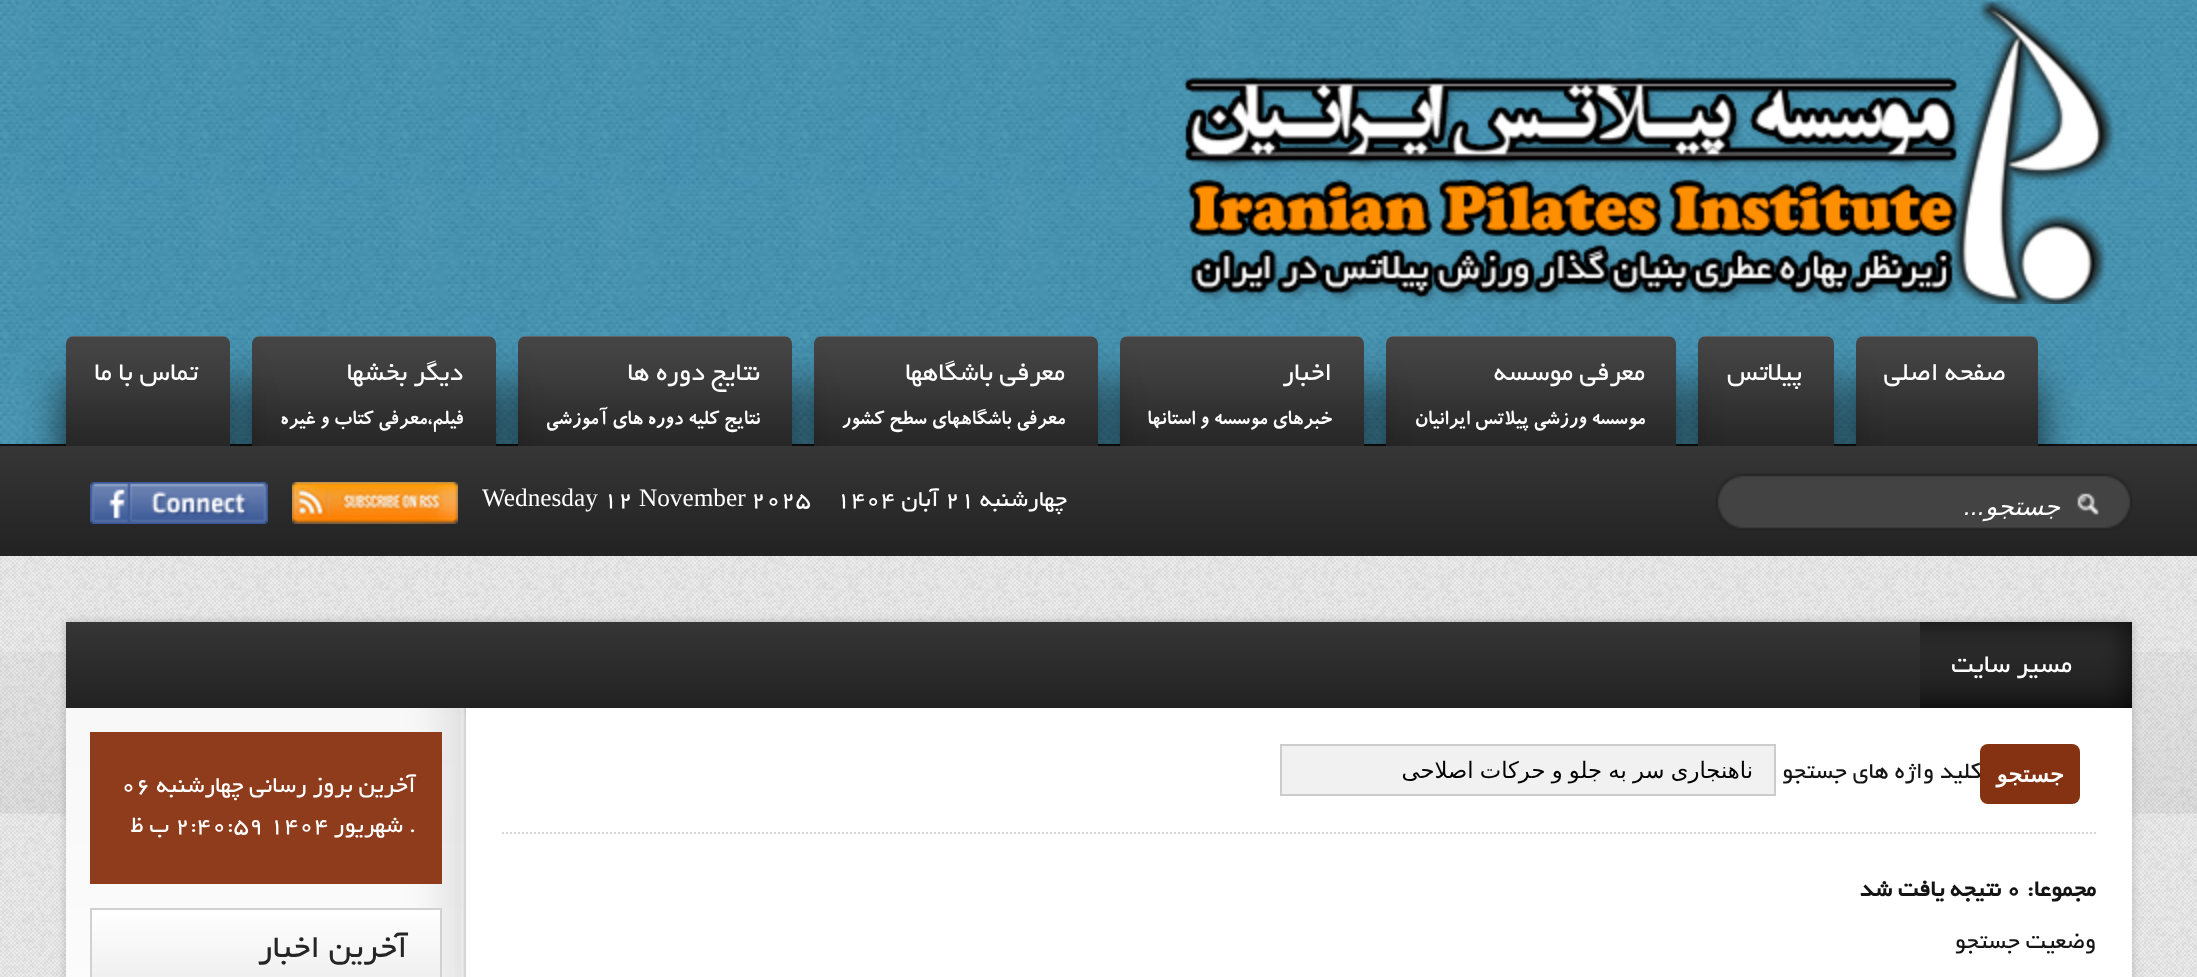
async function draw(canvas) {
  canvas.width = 2197;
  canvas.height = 977;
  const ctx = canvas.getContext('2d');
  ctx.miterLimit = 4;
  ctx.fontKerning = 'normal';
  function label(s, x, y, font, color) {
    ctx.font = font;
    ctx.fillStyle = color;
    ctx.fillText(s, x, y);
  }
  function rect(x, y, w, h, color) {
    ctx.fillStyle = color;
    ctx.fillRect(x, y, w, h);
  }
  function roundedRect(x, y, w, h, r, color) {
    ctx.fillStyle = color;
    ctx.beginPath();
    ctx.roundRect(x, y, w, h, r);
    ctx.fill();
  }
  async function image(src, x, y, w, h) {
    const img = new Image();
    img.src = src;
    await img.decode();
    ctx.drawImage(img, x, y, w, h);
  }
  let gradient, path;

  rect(0, 0, 2197, 977, '#fff');
  await image('assets/img1.png', 0, 0, 2197, 444);
  await image('assets/img2.png', 1183, 1, 932, 303);
  rect(0, 444, 2197, 2, '#111');
  ctx.fillStyle = '#000000bf';
  ctx.filter = 'blur(21px)';
  ctx.beginPath();
  ctx.roundRect(1856, 382, 182, 110, 8);
  ctx.fill();
  ctx.filter = 'none';
  await image('assets/img3.png', 1856, 336, 182, 110);
  ctx.direction = 'rtl';
  label('صفحه اصلي', 2006, 380, '28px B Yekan', '#fff');
  ctx.fillStyle = '#000000bf';
  ctx.filter = 'blur(21px)';
  ctx.beginPath();
  ctx.roundRect(1698, 382, 136, 110, 8);
  ctx.fill();
  ctx.filter = 'none';
  await image('assets/img4.png', 1698, 336, 136, 110);
  label('پيلاتس', 1802, 380, '28px B Yekan', '#fff');
  ctx.fillStyle = '#000000bf';
  ctx.filter = 'blur(21px)';
  ctx.beginPath();
  ctx.roundRect(1386, 382, 290, 110, 8);
  ctx.fill();
  ctx.filter = 'none';
  await image('assets/img5.png', 1386, 336, 290, 110);
  label('معرفي موسسه', 1645, 380, '28px B Yekan', '#fff');
  label('موسسه ورزشي پيلاتس ايرانيان', 1645, 424, 'bold 22.4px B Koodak', '#fff');
  ctx.fillStyle = '#000000bf';
  ctx.filter = 'blur(21px)';
  ctx.beginPath();
  ctx.roundRect(1120, 382, 244, 110, 8);
  ctx.fill();
  ctx.filter = 'none';
  await image('assets/img6.png', 1120, 336, 244, 110);
  label('اخبار', 1332, 380, '28px B Yekan', '#fff');
  label('خبرهاي موسسه و استانها', 1332, 424, 'bold 22.4px B Koodak', '#fff');
  ctx.fillStyle = '#000000bf';
  ctx.filter = 'blur(21px)';
  ctx.beginPath();
  ctx.roundRect(814, 382, 284, 110, 8);
  ctx.fill();
  ctx.filter = 'none';
  await image('assets/img7.png', 814, 336, 284, 110);
  label('معرفي باشگاهها', 1065, 380, '28px B Yekan', '#fff');
  label('معرفي باشگاههاي سطح کشور', 1065, 424, 'bold 22.4px B Koodak', '#fff');
  ctx.fillStyle = '#000000bf';
  ctx.filter = 'blur(21px)';
  ctx.beginPath();
  ctx.roundRect(518, 382, 274, 110, 8);
  ctx.fill();
  ctx.filter = 'none';
  await image('assets/img8.png', 518, 336, 274, 110);
  label('نتايج دوره ها', 760, 380, '28px B Yekan', '#fff');
  label('نتايج کليه دوره هاي آموزشي', 760, 424, 'bold 22.4px B Koodak', '#fff');
  ctx.fillStyle = '#000000bf';
  ctx.filter = 'blur(21px)';
  ctx.beginPath();
  ctx.roundRect(252, 382, 244, 110, 8);
  ctx.fill();
  ctx.filter = 'none';
  await image('assets/img9.png', 252, 336, 244, 110);
  label('ديگر بخشها', 463, 380, '28px B Yekan', '#fff');
  label('فيلم،معرفي کتاب و غيره', 463, 424, 'bold 22.4px B Koodak', '#fff');
  ctx.fillStyle = '#000000bf';
  ctx.filter = 'blur(21px)';
  ctx.beginPath();
  ctx.roundRect(66, 382, 164, 110, 8);
  ctx.fill();
  ctx.filter = 'none';
  await image('assets/img10.png', 66, 336, 164, 110);
  label('تماس با ما', 198, 380, '28px B Yekan', '#fff');
  gradient = ctx.createLinearGradient(1099, 446, 1099, 556);
  gradient.addColorStop(0, '#363636');
  gradient.addColorStop(1, '#222');
  ctx.fillStyle = gradient;
  ctx.fillRect(0, 446, 2197, 110);
  await image('assets/img11.png', 1716, 473, 416, 57);
  label('...', 1985, 515, 'italic 25.25px Liberation Sans', '#fff');
  label('جستجو', 2060, 515, 'italic 25.25px DejaVu Sans', '#fff');
  label('چهارشنبه', 1067, 506, '25.25px B Yekan', '#fff');
  ctx.direction = 'ltr';
  label('21', 945, 506, '25.25px B Yekan', '#fff');
  ctx.direction = 'rtl';
  label('آبان', 939, 506, '25.25px B Yekan', '#fff');
  ctx.direction = 'ltr';
  label('1404', 836, 506, '25.25px B Yekan', '#fff');
  label('2025', 751, 506, '25.25px B Yekan', '#fff');
  label('November', 639, 506, '25.25px Liberation Serif', '#fff');
  label('12', 603, 506, '25.25px B Yekan', '#fff');
  label('Wednesday', 482, 506, '25.25px Liberation Serif', '#fff');
  await image('assets/img12.png', 292, 482, 166, 42);
  await image('assets/img13.png', 90, 482, 178, 42);
  await image('assets/img14.png', 0, 556, 2197, 421);
  await image('assets/img15.png', 0, 652, 2197, 162);
  ctx.fillStyle = '#00000033';
  ctx.filter = 'blur(5px)';
  ctx.beginPath();
  ctx.rect(66, 622, 2066, 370);
  ctx.fill();
  ctx.filter = 'none';
  rect(466, 708, 1666, 269, '#fff');
  gradient = ctx.createLinearGradient(1099, 622, 1099, 708);
  gradient.addColorStop(0, '#363636');
  gradient.addColorStop(1, '#222');
  ctx.fillStyle = gradient;
  ctx.fillRect(66, 622, 2066, 86);
  await image('assets/img16.png', 1920, 622, 212, 86);
  ctx.direction = 'rtl';
  label('مسیر سایت', 2072, 672, '28px B Yekan', '#fff');
  path = new Path2D('M502 833H2096');
  ctx.strokeStyle = '#d6d6d6';
  ctx.lineWidth = 2;
  ctx.setLineDash([2, 2]);
  ctx.stroke(path);
  roundedRect(1980, 744, 100, 60, 8, '#843211');
  label('جستجو', 2064, 782, 'bold 22.7px DejaVu Sans', '#fff');
  label('کلید واژه های جستجو', 1981, 778, '25.25px B Yekan', '#141414');
  ctx.fillStyle = '#f1f1f1';
  ctx.beginPath();
  ctx.rect(1281, 745, 494, 50);
  ctx.fill();
  ctx.strokeStyle = '#ccc';
  ctx.setLineDash([]);
  ctx.stroke();
  ctx.save();
  ctx.beginPath();
  ctx.rect(1304, 756, 448, 28);
  ctx.clip();
  ctx.wordSpacing = '-1px';
  label('ناهنجاری سر به جلو و حرکات اصلاحی', 1753, 778, '22.7px DejaVu Sans', '#000');
  ctx.restore();
  label('مجموعا:', 2096, 896, 'bold 25.25px B Yekan', '#141414');
  ctx.direction = 'ltr';
  label('0', 2006, 896, 'bold 25.25px B Yekan', '#141414');
  ctx.direction = 'rtl';
  label('نتیجه یافت شد', 2001, 896, 'bold 25.25px B Yekan', '#141414');
  label('وضعیت جستجو', 2096, 948, '25.25px B Yekan', '#141414');
  await image('assets/img17.png', 66, 708, 400, 269);
  rect(90, 732, 352, 152, '#8e3c1b');
  label('آخرين بروز رساني چهارشنبه', 416, 792, '25.25px B Yekan', '#fff');
  ctx.direction = 'ltr';
  label('06', 121, 792, '25.25px B Yekan', '#fff');
  label('.', 409, 832, '25.25px B Yekan', '#fff');
  ctx.direction = 'rtl';
  label('شهریور', 403, 832, '25.25px B Yekan', '#fff');
  ctx.direction = 'ltr';
  label('2:40:59 1404', 175, 832, '25.25px B Yekan', '#fff');
  ctx.direction = 'rtl';
  label('ب ظ', 169, 832, '25.25px B Yekan', '#fff');
  ctx.strokeStyle = '#d2d1d1';
  ctx.strokeRect(91, 909, 350, 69);
  gradient = ctx.createLinearGradient(266, 910, 266, 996);
  gradient.addColorStop(0, '#fff');
  gradient.addColorStop(1, '#edecec');
  ctx.fillStyle = gradient;
  ctx.fillRect(92, 910, 348, 67);
  label('آخرین', 408, 957, '35px B Yekan', '#252525');
  label('اخبار', 320, 957, '35px B Yekan', '#252525');
}

draw(document.querySelector('canvas'));
